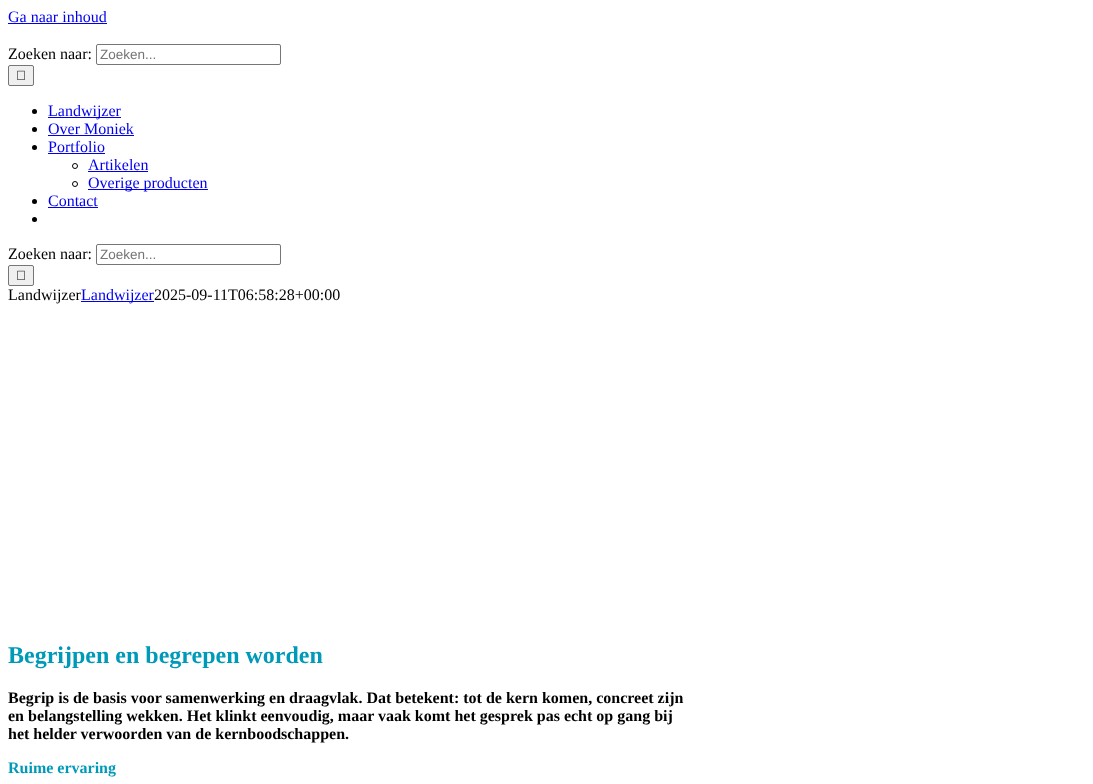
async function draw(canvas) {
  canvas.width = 1093;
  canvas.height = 784;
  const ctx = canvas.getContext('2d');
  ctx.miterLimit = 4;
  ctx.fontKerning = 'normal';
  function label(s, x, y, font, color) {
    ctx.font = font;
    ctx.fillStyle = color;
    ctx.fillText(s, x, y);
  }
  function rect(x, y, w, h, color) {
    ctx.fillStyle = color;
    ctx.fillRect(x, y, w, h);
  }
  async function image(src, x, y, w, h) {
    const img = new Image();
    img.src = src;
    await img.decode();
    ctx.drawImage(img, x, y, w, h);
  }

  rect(0, 0, 1093, 784, '#fff');
  label('Ga naar inhoud', 8, 22, '16px Liberation Serif', '#00e');
  rect(8, 23, 99, 1, '#00e');
  label('Zoeken naar:', 8, 59, '16px Liberation Serif', '#000');
  ctx.beginPath();
  ctx.roundRect(96.5, 44.5, 184, 20, 1.5);
  ctx.strokeStyle = '#767676';
  ctx.stroke();
  label('Zoeken...', 100, 59, '13.5px Liberation Sans', '#757575');
  ctx.fillStyle = '#efefef';
  ctx.beginPath();
  ctx.roundRect(8.5, 65.5, 25, 20, 1.5);
  ctx.fill();
  ctx.stroke();
  await image('assets/img1.png', 17, 70, 8, 10);
  ctx.fillStyle = '#000';
  ctx.beginPath();
  ctx.arc(34.5, 111.5, 2.5, 0, 2 * Math.PI);
  ctx.fill();
  rect(48, 117, 73, 1, '#00e');
  label('Landwijzer', 48, 116, '16px Liberation Serif', '#00e');
  ctx.fillStyle = '#000';
  ctx.beginPath();
  ctx.arc(34.5, 129.5, 2.5, 0, 2 * Math.PI);
  ctx.fill();
  label('Over Moniek', 48, 134, '16px Liberation Serif', '#00e');
  rect(48, 135, 86, 1, '#00e');
  ctx.fillStyle = '#000';
  ctx.beginPath();
  ctx.arc(34.5, 147.5, 2.5, 0, 2 * Math.PI);
  ctx.fill();
  label('Portfolio', 48, 152, '16px Liberation Serif', '#00e');
  rect(48, 153, 57, 1, '#00e');
  ctx.beginPath();
  ctx.arc(75, 166, 2.5, 0, 2 * Math.PI);
  ctx.strokeStyle = '#000';
  ctx.stroke();
  label('Artikelen', 88, 170, '16px Liberation Serif', '#00e');
  rect(88, 171, 60, 1, '#00e');
  ctx.beginPath();
  ctx.arc(75, 184, 2.5, 0, 2 * Math.PI);
  ctx.stroke();
  rect(88, 189, 120, 1, '#00e');
  label('Overige producten', 88, 188, '16px Liberation Serif', '#00e');
  ctx.fillStyle = '#000';
  ctx.beginPath();
  ctx.arc(34.5, 201.5, 2.5, 0, 2 * Math.PI);
  ctx.fill();
  label('Contact', 48, 206, '16px Liberation Serif', '#00e');
  rect(48, 207, 50, 1, '#00e');
  ctx.fillStyle = '#000';
  ctx.beginPath();
  ctx.arc(34.5, 219.5, 2.5, 0, 2 * Math.PI);
  ctx.fill();
  label('Zoeken naar:', 8, 259, '16px Liberation Serif', '#000');
  ctx.beginPath();
  ctx.roundRect(96.5, 244.5, 184, 20, 1.5);
  ctx.strokeStyle = '#767676';
  ctx.stroke();
  label('Zoeken...', 100, 259, '13.5px Liberation Sans', '#757575');
  ctx.fillStyle = '#efefef';
  ctx.beginPath();
  ctx.roundRect(8.5, 265.5, 25, 20, 1.5);
  ctx.fill();
  ctx.stroke();
  await image('assets/img1.png', 17, 270, 8, 10);
  label('Landwijzer', 8, 300, '16px Liberation Serif', '#000');
  rect(81, 301, 73, 1, '#00e');
  label('Landwijzer', 81, 300, '16px Liberation Serif', '#00e');
  label('2025-09-11T06:58:28+00:00', 154, 300, '16px Liberation Serif', '#000');
  label('Begrijpen en begrepen worden', 8, 663, 'bold 24px Liberation Serif', '#009ab9');
  label('Begrip is de basis voor samenwerking en draagvlak. Dat betekent: tot de kern komen, concreet zijn', 8, 703, 'bold 16px Liberation Serif', '#000');
  label('en belangstelling wekken. Het klinkt eenvoudig, maar vaak komt het gesprek pas echt op gang bij', 8, 721, 'bold 16px Liberation Serif', '#000');
  label('het helder verwoorden van de kernboodschappen.', 8, 739, 'bold 16px Liberation Serif', '#000');
  label('Ruime ervaring', 8, 773, 'bold 16px Liberation Serif', '#009ab9');
}

draw(document.querySelector('canvas'));
